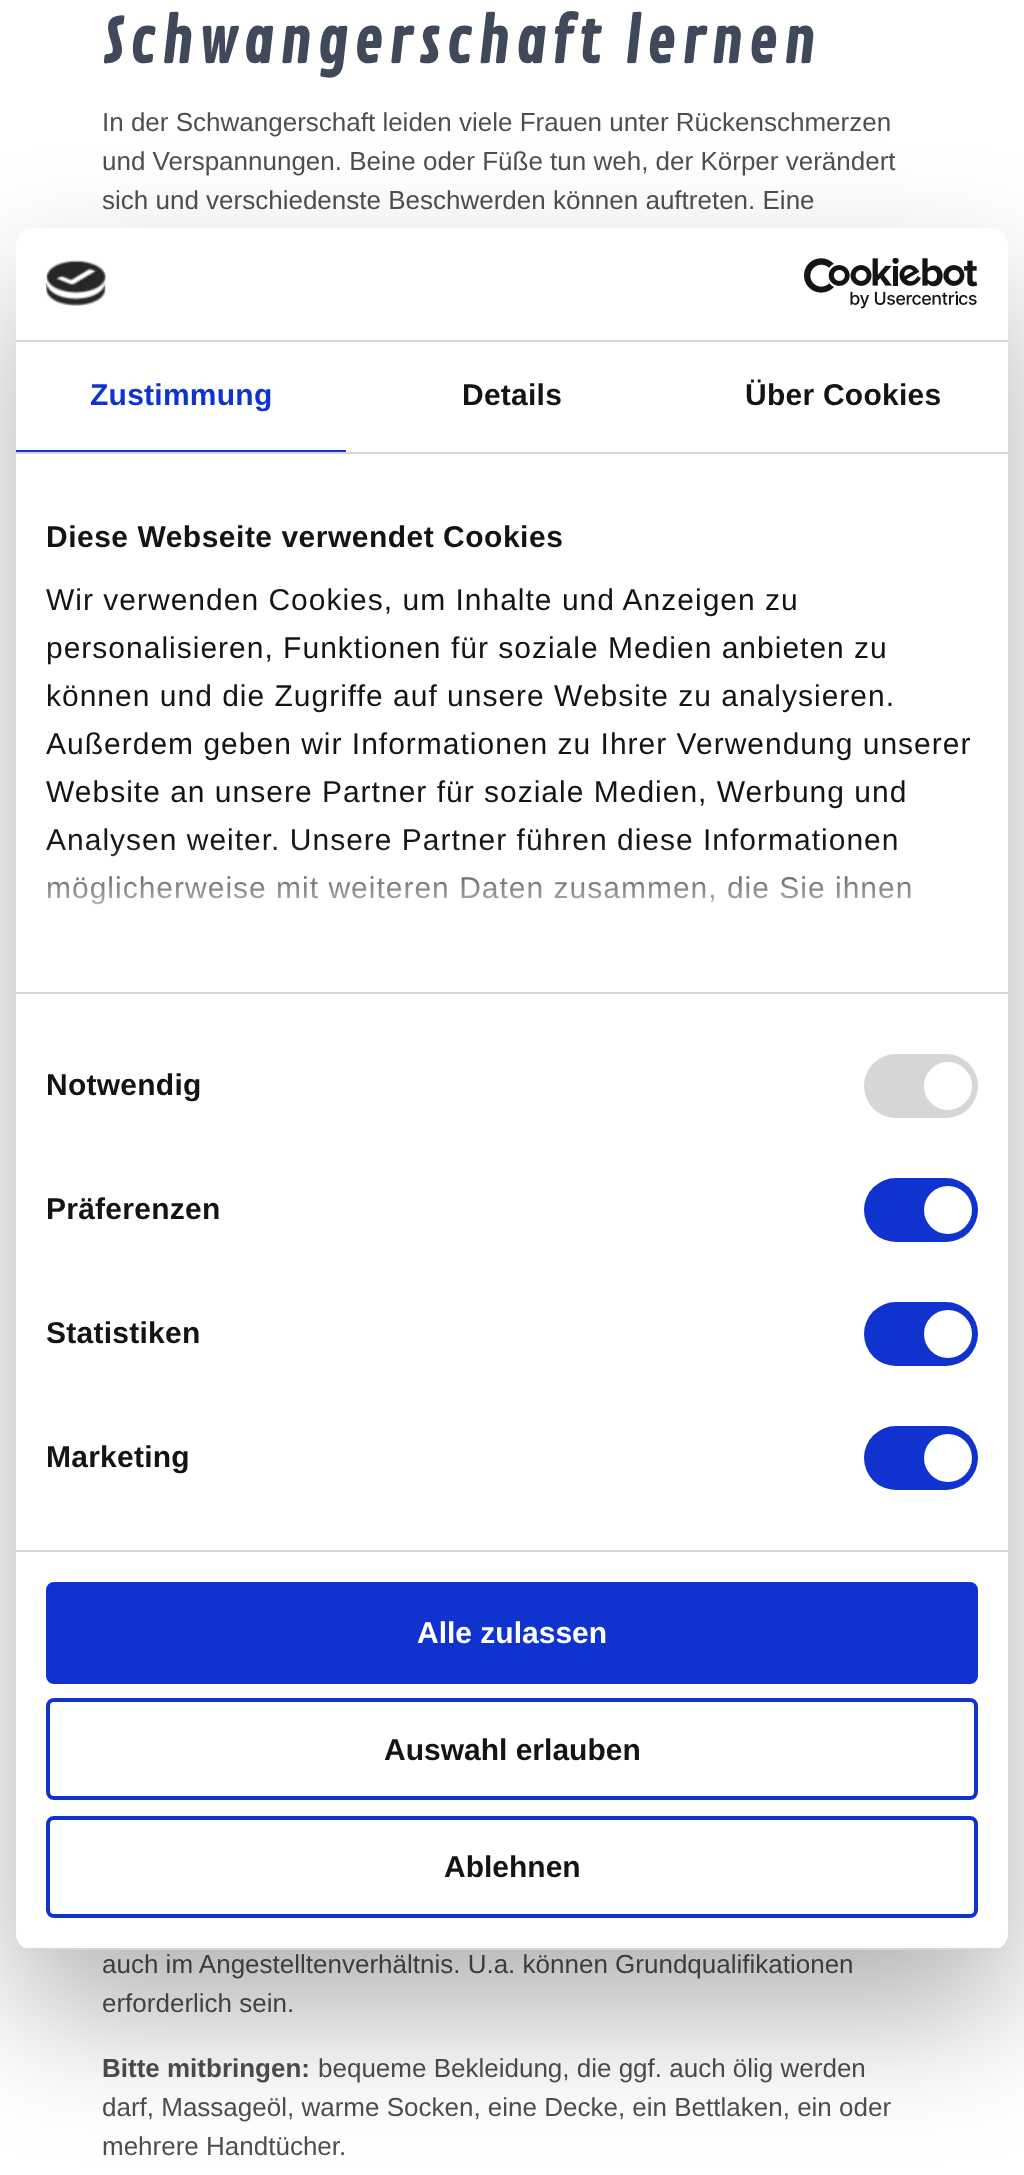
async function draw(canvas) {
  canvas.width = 1024;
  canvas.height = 2175;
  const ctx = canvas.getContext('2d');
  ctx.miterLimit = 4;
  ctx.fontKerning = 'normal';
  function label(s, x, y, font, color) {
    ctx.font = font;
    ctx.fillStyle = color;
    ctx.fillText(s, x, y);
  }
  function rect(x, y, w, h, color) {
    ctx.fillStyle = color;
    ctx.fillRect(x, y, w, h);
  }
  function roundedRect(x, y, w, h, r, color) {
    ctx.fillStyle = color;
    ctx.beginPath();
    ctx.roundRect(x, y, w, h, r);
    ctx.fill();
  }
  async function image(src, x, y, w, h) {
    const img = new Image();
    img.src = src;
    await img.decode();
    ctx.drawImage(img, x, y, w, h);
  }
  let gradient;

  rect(0, 0, 1024, 2175, '#fff');
  ctx.letterSpacing = '6px';
  label('Schwangerschaft lernen', 102, 63, 'bold 60px Contrail One', '#404959');
  ctx.letterSpacing = '0px';
  label('In der Schwangerschaft leiden viele Frauen unter Rückenschmerzen', 102, 131, '26px Liberation Sans', '#504f4f');
  label('und Verspannungen. Beine oder Füße tun weh, der Körper verändert', 102, 170, '26px Liberation Sans', '#504f4f');
  label('sich und verschiedenste Beschwerden können auftreten. Eine', 102, 209, '26px Liberation Sans', '#504f4f');
  label('auch im Angestelltenverhältnis. U.a. können Grundqualifikationen', 102, 1973, '26px Liberation Sans', '#504f4f');
  label('erforderlich sein.', 102, 2012, '26px Liberation Sans', '#504f4f');
  label('Bitte mitbringen:', 102, 2077, 'bold 26px Liberation Sans', '#504f4f');
  label('bequeme Bekleidung, die ggf. auch ölig werden', 318, 2077, '26px Liberation Sans', '#504f4f');
  label('darf, Massageöl, warme Socken, eine Decke, ein Bettlaken, ein oder', 102, 2116, '26px Liberation Sans', '#504f4f');
  label('mehrere Handtücher.', 102, 2155, '26px Liberation Sans', '#504f4f');
  ctx.fillStyle = '#0000004d';
  ctx.filter = 'blur(68px)';
  ctx.beginPath();
  ctx.roundRect(16, 292, 992, 1722, 16);
  ctx.fill();
  ctx.filter = 'none';
  roundedRect(16, 228, 992, 1722, 16, '#fff');
  rect(16, 340, 992, 2, '#d6d6d6');
  await image('assets/img1.png', 46, 260, 60, 46);
  await image('assets/img2.png', 804, 258, 174, 51);
  rect(16, 452, 992, 2, '#d6d6d6');
  rect(16, 450, 330, 2, '#1032cf');
  ctx.letterSpacing = '0.25px';
  label('Zustimmung', 90, 405, 'bold 30px Liberation Sans', '#1032cf');
  label('Details', 462, 405, 'bold 30px Liberation Sans', '#141414');
  label('Über Cookies', 745, 405, 'bold 30px Liberation Sans', '#141414');
  rect(16, 992, 992, 2, '#d6d6d6');
  ctx.letterSpacing = '0.5px';
  label('Diese Webseite verwendet Cookies', 46, 547, 'bold 30px Liberation Sans', '#141414');
  ctx.letterSpacing = '1px';
  label('Wir verwenden Cookies, um Inhalte und Anzeigen zu', 46, 610, '30px Liberation Sans', '#141414');
  label('personalisieren, Funktionen für soziale Medien anbieten zu', 46, 658, '30px Liberation Sans', '#141414');
  label('können und die Zugriffe auf unsere Website zu analysieren.', 46, 706, '30px Liberation Sans', '#141414');
  label('Außerdem geben wir Informationen zu Ihrer Verwendung unserer', 46, 754, '30px Liberation Sans', '#141414');
  label('Website an unsere Partner für soziale Medien, Werbung und', 46, 802, '30px Liberation Sans', '#141414');
  label('Analysen weiter. Unsere Partner führen diese Informationen', 46, 850, '30px Liberation Sans', '#141414');
  label('möglicherweise mit weiteren Daten zusammen, die Sie ihnen', 46, 898, '30px Liberation Sans', '#141414');
  gradient = ctx.createLinearGradient(499, 992, 499, 842);
  gradient.addColorStop(0, '#fff');
  gradient.addColorStop(0.5, '#ffffffcc');
  gradient.addColorStop(1, '#ffffff00');
  ctx.fillStyle = gradient;
  ctx.fillRect(46, 844, 865, 61);
  rect(16, 1550, 992, 2, '#d6d6d6');
  ctx.letterSpacing = '0.25px';
  label('Notwendig', 46, 1095, 'bold 30px Liberation Sans', '#141414');
  roundedRect(864, 1054, 114, 64, 32, '#d6d6d6');
  ctx.fillStyle = '#fff';
  ctx.beginPath();
  ctx.arc(948, 1086, 24, 0, 2 * Math.PI);
  ctx.fill();
  label('Präferenzen', 46, 1219, 'bold 30px Liberation Sans', '#141414');
  roundedRect(864, 1178, 114, 64, 32, '#1032cf');
  ctx.fillStyle = '#fff';
  ctx.beginPath();
  ctx.arc(948, 1210, 24, 0, 2 * Math.PI);
  ctx.fill();
  label('Statistiken', 46, 1343, 'bold 30px Liberation Sans', '#141414');
  roundedRect(864, 1302, 114, 64, 32, '#1032cf');
  ctx.fillStyle = '#fff';
  ctx.beginPath();
  ctx.arc(948, 1334, 24, 0, 2 * Math.PI);
  ctx.fill();
  label('Marketing', 46, 1467, 'bold 30px Liberation Sans', '#141414');
  roundedRect(864, 1426, 114, 64, 32, '#1032cf');
  ctx.fillStyle = '#fff';
  ctx.beginPath();
  ctx.arc(948, 1458, 24, 0, 2 * Math.PI);
  ctx.fill();
  ctx.save();
  ctx.beginPath();
  ctx.roundRect(16, 228, 992, 1722, 16);
  ctx.clip();
  rect(16, 1948, 992, 2, '#d6d6d6');
  ctx.restore();
  ctx.fillStyle = '#1032cf';
  ctx.beginPath();
  ctx.roundRect(48, 1584, 928, 98, 6);
  ctx.fill();
  ctx.strokeStyle = '#1032cf';
  ctx.lineWidth = 4;
  ctx.stroke();
  ctx.letterSpacing = '0px';
  label('Alle zulassen', 417, 1643, 'bold 30px Liberation Sans', '#fff');
  ctx.beginPath();
  ctx.roundRect(48, 1700, 928, 98, 6);
  ctx.stroke();
  label('Auswahl erlauben', 384, 1760, 'bold 30px Liberation Sans', '#141414');
  ctx.beginPath();
  ctx.roundRect(48, 1818, 928, 98, 6);
  ctx.stroke();
  label('Ablehnen', 444, 1877, 'bold 30px Liberation Sans', '#141414');
}

draw(document.querySelector('canvas'));
